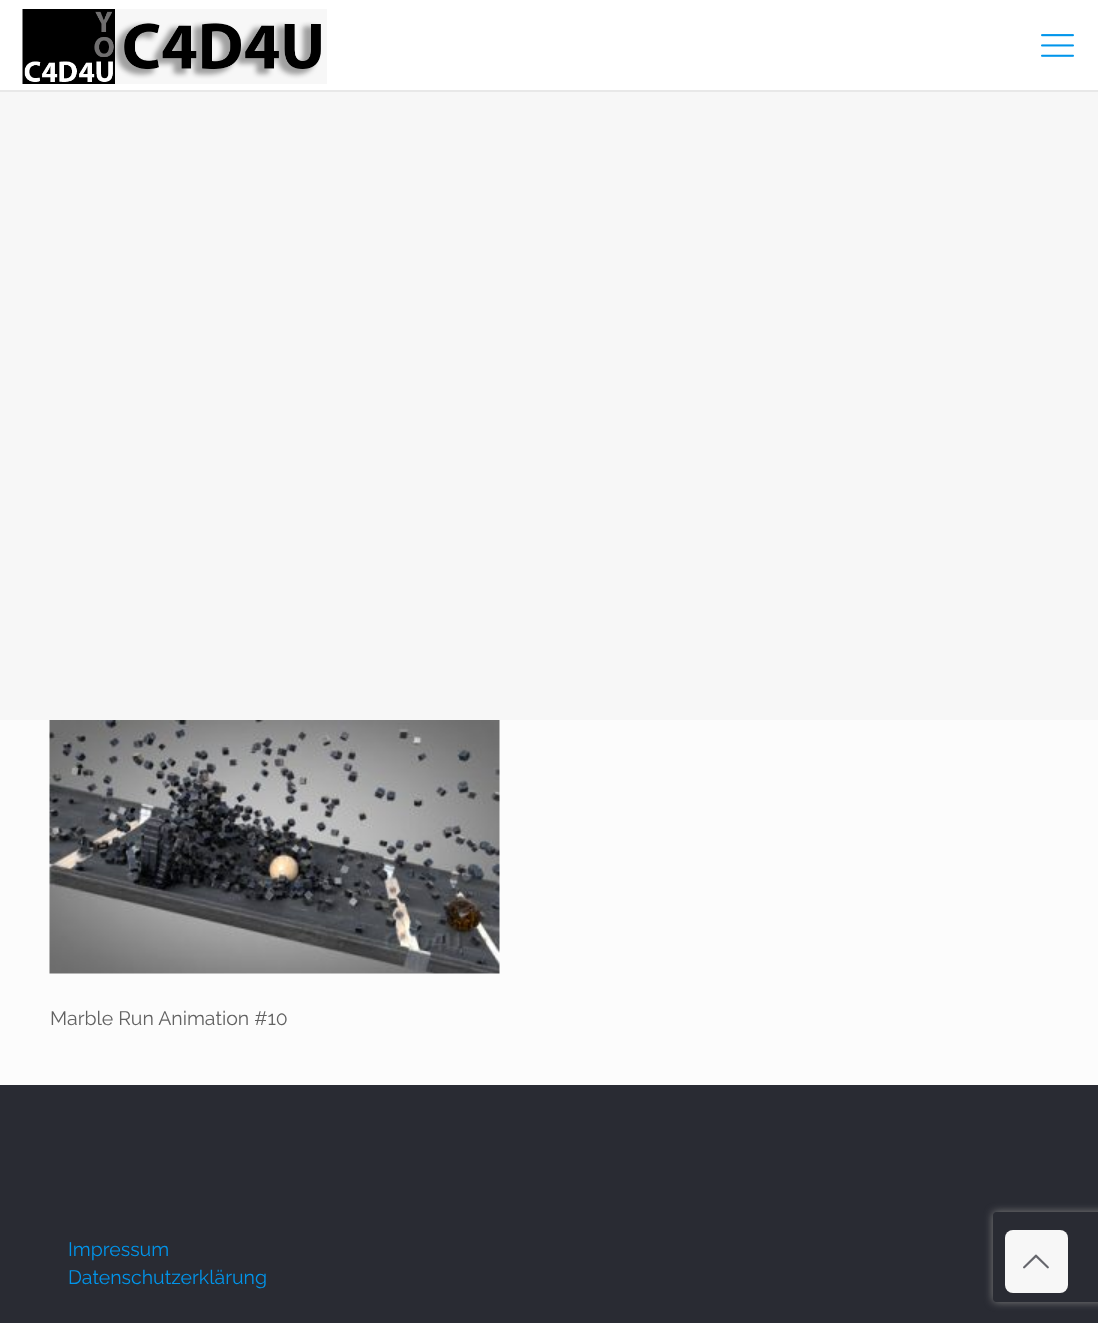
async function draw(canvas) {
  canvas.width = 1098;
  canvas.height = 1323;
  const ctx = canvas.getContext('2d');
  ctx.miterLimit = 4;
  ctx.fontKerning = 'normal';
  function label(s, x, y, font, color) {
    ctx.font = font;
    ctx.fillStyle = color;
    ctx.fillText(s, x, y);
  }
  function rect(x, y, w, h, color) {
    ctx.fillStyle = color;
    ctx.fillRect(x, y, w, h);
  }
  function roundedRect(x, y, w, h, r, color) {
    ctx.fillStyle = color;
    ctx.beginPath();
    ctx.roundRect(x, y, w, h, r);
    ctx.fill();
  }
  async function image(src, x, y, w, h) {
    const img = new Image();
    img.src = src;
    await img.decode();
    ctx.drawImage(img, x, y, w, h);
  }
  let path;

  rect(0, 0, 1098, 1323, '#fcfcfc');
  rect(0, 92, 1098, 628, '#f7f7f7');
  rect(0, 0, 1098, 90, '#fff');
  rect(0, 90, 1098, 2, '#e8e8e8');
  await image('assets/img1.png', 22, 9, 305, 75);
  await image('assets/img2.png', 1041, 34, 33, 23);
  await image('assets/img3.png', 49, 720, 451, 254);
  label('Marble Run Animation #10', 50, 1025, '100 19.5px Raleway', '#626262');
  rect(0, 1085, 1098, 238, '#292b33');
  label('Impressum', 68, 1256, '100 19.5px Raleway', '#0095eb');
  label('Datenschutzerklärung', 68, 1284, '100 19.5px Raleway', '#0095eb');
  ctx.save();
  path = new Path2D('M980 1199H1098V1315H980ZM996 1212H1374C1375.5 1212 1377 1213.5 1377 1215V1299C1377 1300.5 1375.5 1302 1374 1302H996C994.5 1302 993 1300.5 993 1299V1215C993 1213.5 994.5 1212 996 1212Z');
  ctx.clip(path, 'evenodd');
  ctx.fillStyle = '#808080';
  ctx.filter = 'blur(4px)';
  ctx.beginPath();
  ctx.roundRect(993, 1212, 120, 90, 3);
  ctx.fill();
  ctx.filter = 'none';
  ctx.restore();
  roundedRect(1005, 1230, 63, 63, 8, '#f7f7f7');
  await image('assets/img4.png', 1023, 1254, 26, 15);
}

draw(document.querySelector('canvas'));
